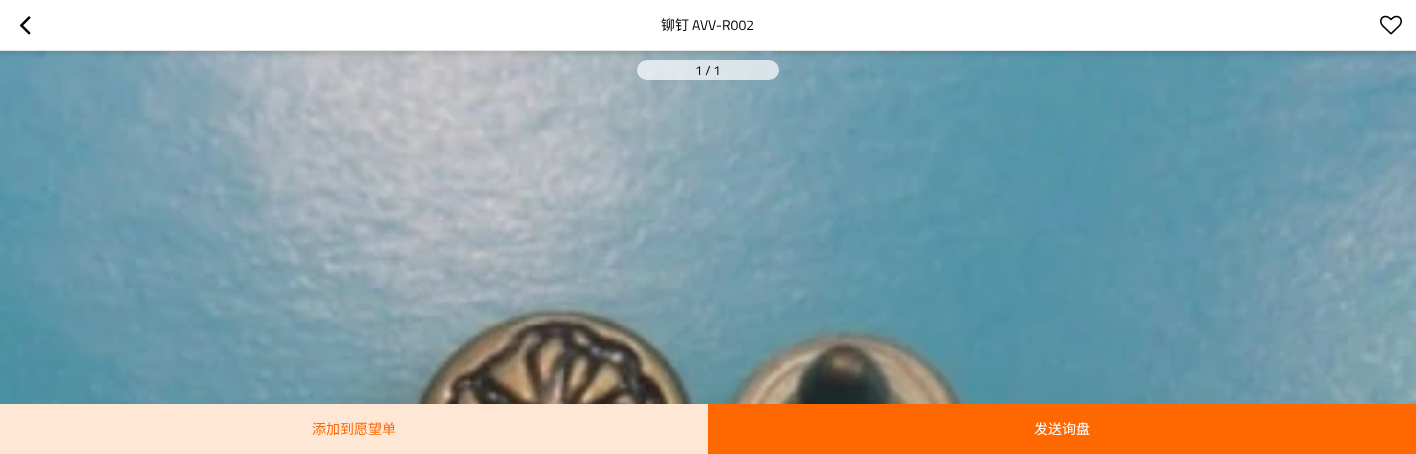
async function draw(canvas) {
  canvas.width = 1416;
  canvas.height = 454;
  const ctx = canvas.getContext('2d');
  ctx.miterLimit = 4;
  ctx.fontKerning = 'normal';
  function label(s, x, y, font, color) {
    ctx.font = font;
    ctx.fillStyle = color;
    ctx.fillText(s, x, y);
  }
  function rect(x, y, w, h, color) {
    ctx.fillStyle = color;
    ctx.fillRect(x, y, w, h);
  }
  function roundedRect(x, y, w, h, r, color) {
    ctx.fillStyle = color;
    ctx.beginPath();
    ctx.roundRect(x, y, w, h, r);
    ctx.fill();
  }
  async function image(src, x, y, w, h) {
    const img = new Image();
    img.src = src;
    await img.decode();
    ctx.drawImage(img, x, y, w, h);
  }

  rect(0, 0, 1416, 454, '#fff');
  await image('assets/img3.png', 0, 51, 1416, 353);
  roundedRect(637, 60, 142, 20, 10, '#ffffffb3');
  ctx.fillStyle = '#0000001a';
  ctx.filter = 'blur(2.5px)';
  ctx.beginPath();
  ctx.rect(0, 3, 1416, 51);
  ctx.fill();
  ctx.filter = 'none';
  rect(0, 0, 1416, 50, '#fff');
  rect(0, 50, 1416, 1, '#e5e5e5');
  await image('assets/img1.png', 19, 16, 12, 19);
  label('铆钉', 661, 30, '14px Noto Sans CJK SC', '#000');
  label('AVV-R002', 692, 30, '14px Titillium Web', '#000');
  await image('assets/img2.png', 1380, 15, 22, 20);
  label('1 / 1', 695, 75, '13px Titillium Web', '#000');
  rect(0, 404, 708, 50, '#ffe7d6');
  label('添加到愿望单', 312, 434, '14px Noto Sans CJK SC', '#ff6700');
  rect(708, 404, 708, 50, '#ff6700');
  label('发送询盘', 1034, 434, '14px Noto Sans CJK SC', '#fff');
}

draw(document.querySelector('canvas'));
